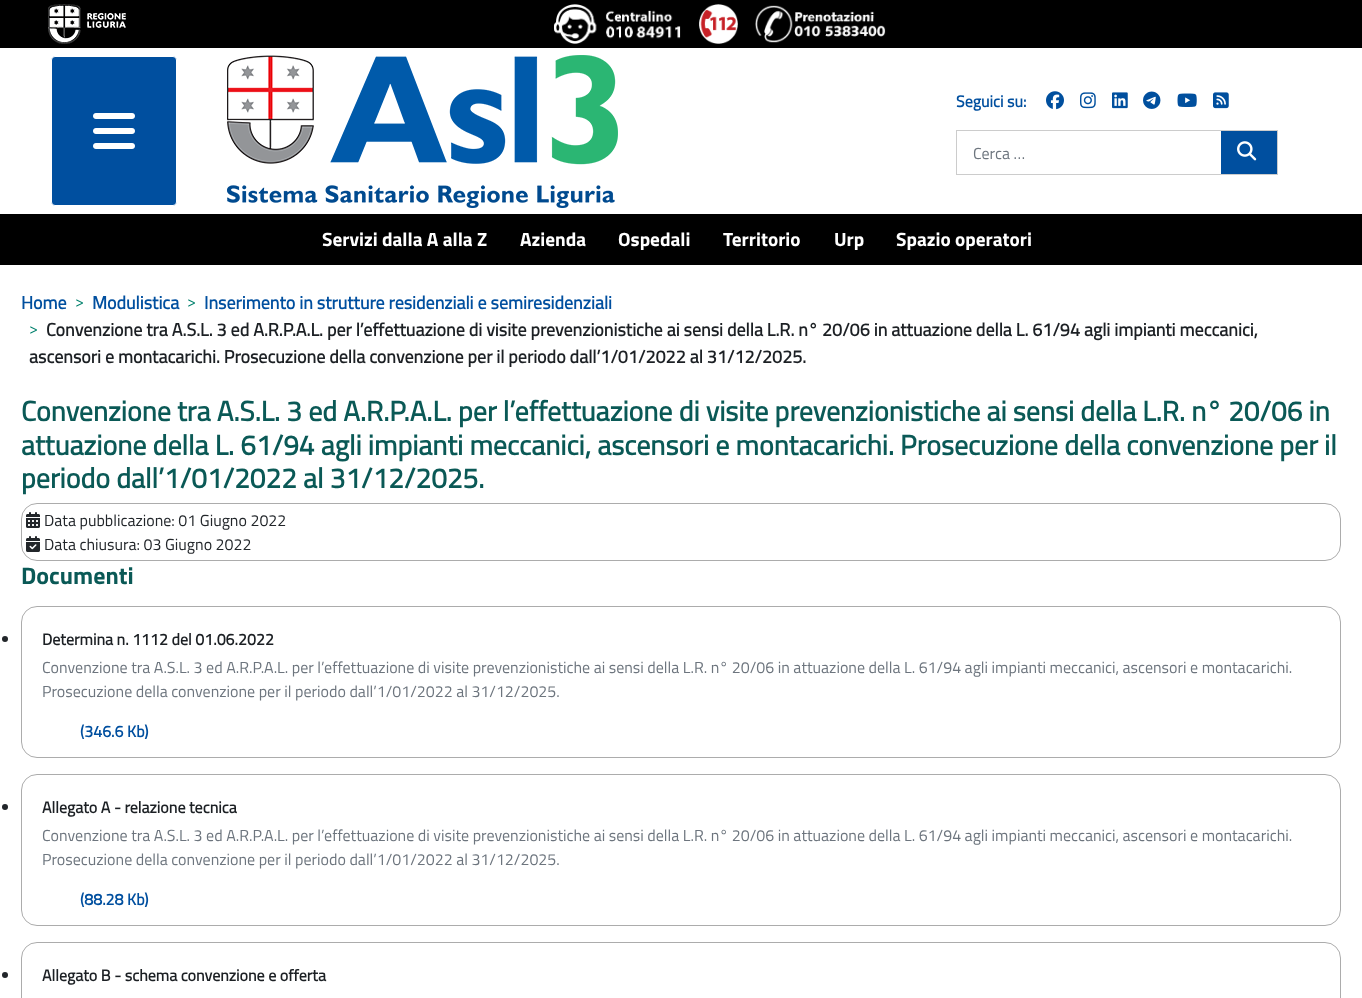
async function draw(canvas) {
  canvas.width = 1362;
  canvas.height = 998;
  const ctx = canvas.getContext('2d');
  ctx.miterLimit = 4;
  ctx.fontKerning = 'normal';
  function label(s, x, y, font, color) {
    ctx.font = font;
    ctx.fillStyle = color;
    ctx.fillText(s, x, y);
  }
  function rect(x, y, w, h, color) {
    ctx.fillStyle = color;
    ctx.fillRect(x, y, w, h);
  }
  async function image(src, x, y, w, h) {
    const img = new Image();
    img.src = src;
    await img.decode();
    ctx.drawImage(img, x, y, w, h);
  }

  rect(0, 0, 1362, 998, '#fff');
  rect(0, 0, 1362, 48, '#000');
  await image('assets/img1.png', 48, 4, 78, 40);
  await image('assets/img2.png', 554, 4, 127, 40);
  await image('assets/img3.png', 699, 4, 39, 40);
  await image('assets/img4.png', 755, 5, 131, 38);
  ctx.fillStyle = '#004f9f';
  ctx.beginPath();
  ctx.roundRect(51.5, 56.5, 125, 149, 3.5);
  ctx.fill();
  ctx.strokeStyle = '#fff';
  ctx.stroke();
  await image('assets/img5.png', 93, 113, 42, 36);
  await image('assets/img6.png', 227, 55, 391, 153);
  label('Seguici su:', 956, 107, 'bold 16px Titillium Web', '#004f9f');
  await image('assets/img7.png', 1046, 91, 18, 19);
  await image('assets/img8.png', 1080, 92, 16, 17);
  await image('assets/img9.png', 1112, 92, 16, 17);
  await image('assets/img10.png', 1143, 91, 18, 18);
  await image('assets/img11.png', 1177, 93, 20, 14);
  await image('assets/img12.png', 1213, 92, 16, 17);
  ctx.strokeStyle = '#ccc';
  ctx.strokeRect(956.5, 130.5, 321, 44);
  label('Cerca …', 973, 159, '16px Titillium Web', '#6d757e');
  rect(1221, 131, 56, 43, '#004f9f');
  await image('assets/img13.png', 1237, 141, 20, 20);
  rect(0, 214, 1362, 51, '#000');
  label('Servizi dalla A alla Z', 322, 246, 'bold 19.25px "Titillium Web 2"', '#fff');
  label('Azienda', 520, 246, 'bold 19.25px "Titillium Web 2"', '#fff');
  label('Ospedali', 618, 246, 'bold 19.25px "Titillium Web 2"', '#fff');
  label('Territorio', 723, 246, 'bold 19.25px "Titillium Web 2"', '#fff');
  label('Urp', 834, 246, 'bold 19.25px "Titillium Web 2"', '#fff');
  label('Spazio operatori', 896, 246, 'bold 19.25px "Titillium Web 2"', '#fff');
  label('Home', 21, 309, 'bold 18px Titillium Web', '#004f9f');
  label('>', 75, 307, '16px Titillium Web', '#00816d');
  label('Modulistica', 92, 309, 'bold 18px Titillium Web', '#004f9f');
  label('>', 187, 307, '16px Titillium Web', '#00816d');
  label('Inserimento in strutture residenziali e semiresidenziali', 204, 309, 'bold 18px Titillium Web', '#004f9f');
  label('>', 29, 334, '16px Titillium Web', '#00816d');
  label('Convenzione tra A.S.L. 3 ed A.R.P.A.L. per l’effettuazione di visite prevenzionistiche ai sensi della L.R. n° 20/06 in attuazione della L. 61/94 agli impianti meccanici,', 46, 336, 'bold 18px Titillium Web', '#1c2024');
  label('ascensori e montacarichi. Prosecuzione della convenzione per il periodo dall’1/01/2022 al 31/12/2025.', 29, 363, 'bold 18px Titillium Web', '#1c2024');
  label('Convenzione tra A.S.L. 3 ed A.R.P.A.L. per l’effettuazione di visite prevenzionistiche ai sensi della L.R. n° 20/06 in', 21, 421, 'bold 28px Titillium Web', '#0a5956');
  label('attuazione della L. 61/94 agli impianti meccanici, ascensori e montacarichi. Prosecuzione della convenzione per il', 21, 455, 'bold 28px Titillium Web', '#0a5956');
  label('periodo dall’1/01/2022 al 31/12/2025.', 21, 488, 'bold 28px Titillium Web', '#0a5956');
  ctx.beginPath();
  ctx.roundRect(21.5, 503.5, 1319, 57, 15.5);
  ctx.strokeStyle = '#acacac';
  ctx.stroke();
  await image('assets/img14.png', 26, 512, 14, 16);
  label('Data pubblicazione: 01 Giugno 2022', 44, 526, '16px Titillium Web', '#22262a');
  await image('assets/img15.png', 26, 536, 14, 16);
  label('Data chiusura: 03 Giugno 2022', 44, 550, '16px Titillium Web', '#22262a');
  label('Documenti', 21, 584, 'bold 24px "Titillium Web 2"', '#0a5956');
  ctx.beginPath();
  ctx.roundRect(21.5, 606.5, 1319, 151, 15.5);
  ctx.stroke();
  ctx.fillStyle = '#22262a';
  ctx.beginPath();
  ctx.arc(5, 639, 3, 0, 2 * Math.PI);
  ctx.fill();
  label('Determina n. 1112 del 01.06.2022', 42, 645, 'bold 16px Titillium Web', '#1c2024');
  label('Convenzione tra A.S.L. 3 ed A.R.P.A.L. per l’effettuazione di visite prevenzionistiche ai sensi della L.R. n° 20/06 in attuazione della L. 61/94 agli impianti meccanici, ascensori e montacarichi.', 42, 673, '16px Titillium Web', '#6d757e');
  label('Prosecuzione della convenzione per il periodo dall’1/01/2022 al 31/12/2025.', 42, 697, '16px Titillium Web', '#6d757e');
  label('(346.6 Kb)', 80, 737, 'bold 16px Titillium Web', '#004f9f');
  ctx.beginPath();
  ctx.roundRect(21.5, 774.5, 1319, 151, 15.5);
  ctx.stroke();
  ctx.fillStyle = '#22262a';
  ctx.beginPath();
  ctx.arc(5, 807, 3, 0, 2 * Math.PI);
  ctx.fill();
  label('Allegato A - relazione tecnica', 42, 813, 'bold 16px Titillium Web', '#1c2024');
  label('Convenzione tra A.S.L. 3 ed A.R.P.A.L. per l’effettuazione di visite prevenzionistiche ai sensi della L.R. n° 20/06 in attuazione della L. 61/94 agli impianti meccanici, ascensori e montacarichi.', 42, 841, '16px Titillium Web', '#6d757e');
  label('Prosecuzione della convenzione per il periodo dall’1/01/2022 al 31/12/2025.', 42, 865, '16px Titillium Web', '#6d757e');
  label('(88.28 Kb)', 80, 905, 'bold 16px Titillium Web', '#004f9f');
  ctx.beginPath();
  ctx.roundRect(21.5, 942.5, 1319, 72, 15.5);
  ctx.stroke();
  ctx.fillStyle = '#22262a';
  ctx.beginPath();
  ctx.arc(5, 975, 3, 0, 2 * Math.PI);
  ctx.fill();
  label('Allegato B - schema convenzione e offerta', 42, 981, 'bold 16px Titillium Web', '#1c2024');
}

draw(document.querySelector('canvas'));
